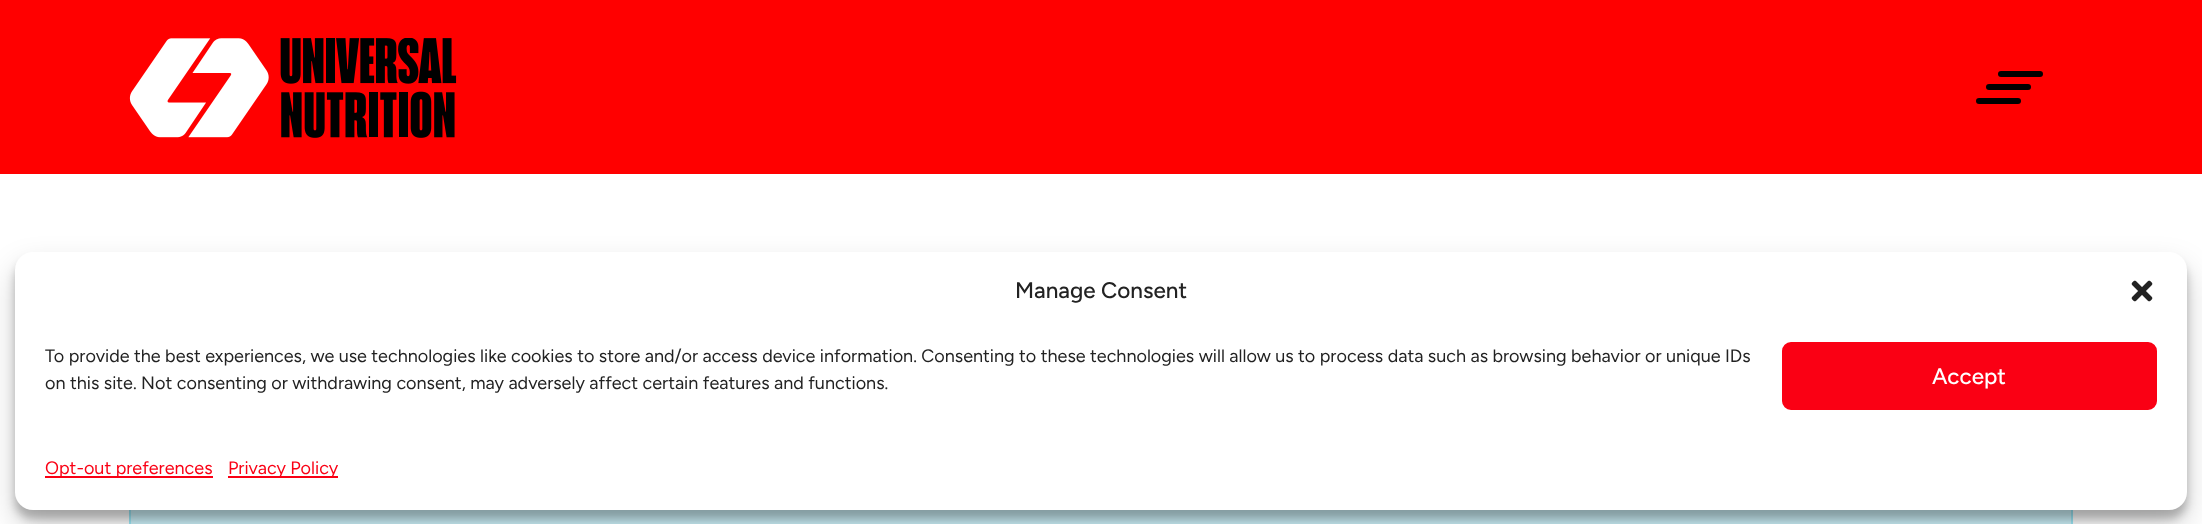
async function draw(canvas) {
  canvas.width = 2202;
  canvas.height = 524;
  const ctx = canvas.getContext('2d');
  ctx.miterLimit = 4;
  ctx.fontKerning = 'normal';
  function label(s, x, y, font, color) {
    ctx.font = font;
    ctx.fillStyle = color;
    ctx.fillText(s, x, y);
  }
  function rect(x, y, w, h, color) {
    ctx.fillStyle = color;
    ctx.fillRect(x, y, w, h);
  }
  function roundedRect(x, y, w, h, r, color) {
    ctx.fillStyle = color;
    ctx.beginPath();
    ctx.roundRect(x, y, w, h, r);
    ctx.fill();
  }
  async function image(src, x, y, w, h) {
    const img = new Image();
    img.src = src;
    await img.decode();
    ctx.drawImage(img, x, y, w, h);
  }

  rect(0, 0, 2202, 524, '#fff');
  rect(0, 0, 2202, 174, '#f00');
  await image('assets/img1.png', 129, 38, 328, 100);
  roundedRect(1998, 71, 45, 6, 3, '#000');
  roundedRect(1986, 84, 45, 6, 3, '#000');
  roundedRect(1976, 98, 45, 6, 3, '#000');
  rect(131, 510, 1940, 14, '#cff4fc');
  ctx.strokeStyle = '#9eeaf9';
  ctx.lineWidth = 2;
  ctx.strokeRect(130, 432, 1942, 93);
  ctx.fillStyle = '#0000003b';
  ctx.filter = 'blur(4.5px)';
  ctx.beginPath();
  ctx.roundRect(15, 261, 2172, 258, 18);
  ctx.fill();
  ctx.filter = 'none';
  ctx.fillStyle = '#00000030';
  ctx.filter = 'blur(15px)';
  ctx.beginPath();
  ctx.roundRect(15, 267, 2172, 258, 18);
  ctx.fill();
  ctx.filter = 'none';
  roundedRect(15, 252, 2172, 258, 18, '#fff');
  label('Manage Consent', 1015, 298, '500 22.5px Figtree', '#222');
  await image('assets/img2.png', 2131, 280, 22, 22);
  label('To provide the best experiences, we use technologies like cookies to store and/or access device information. Consenting to these technologies will allow us to process data such as browsing behavior or unique IDs', 45, 362, '18px Figtree', '#222');
  label('on this site. Not consenting or withdrawing consent, may adversely affect certain features and functions.', 45, 389, '18px Figtree', '#222');
  ctx.fillStyle = '#fa0014';
  ctx.beginPath();
  ctx.roundRect(1783, 343, 373, 66, 8);
  ctx.fill();
  ctx.strokeStyle = '#fa0014';
  ctx.stroke();
  label('Accept', 1932, 384, '500 22.5px Figtree', '#fff');
  rect(45, 476, 168, 2, '#fa0014');
  label('Opt-out preferences', 45, 474, '18px Figtree', '#fa0014');
  rect(228, 476, 110, 2, '#fa0014');
  label('Privacy Policy', 228, 474, '18px Figtree', '#fa0014');
}

draw(document.querySelector('canvas'));
